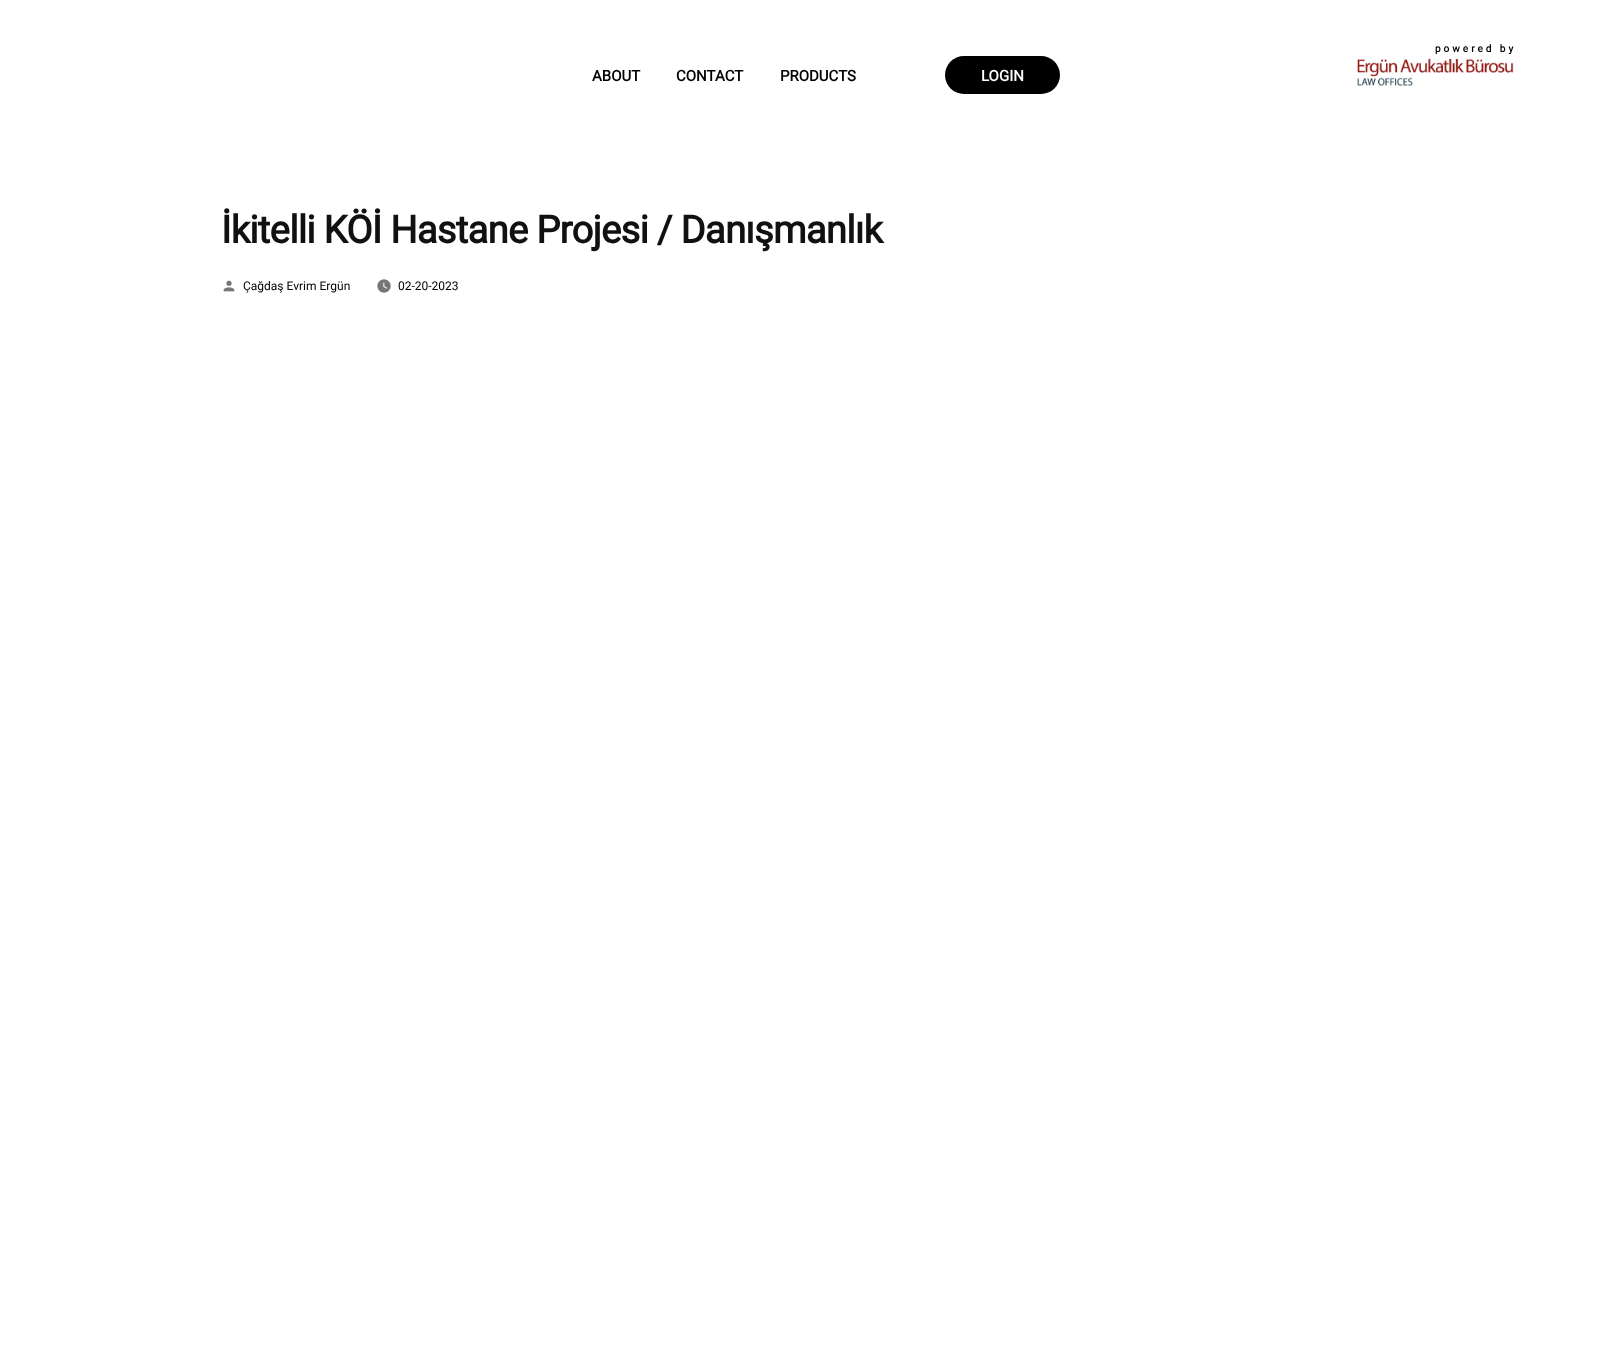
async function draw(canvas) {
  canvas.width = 1614;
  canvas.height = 1362;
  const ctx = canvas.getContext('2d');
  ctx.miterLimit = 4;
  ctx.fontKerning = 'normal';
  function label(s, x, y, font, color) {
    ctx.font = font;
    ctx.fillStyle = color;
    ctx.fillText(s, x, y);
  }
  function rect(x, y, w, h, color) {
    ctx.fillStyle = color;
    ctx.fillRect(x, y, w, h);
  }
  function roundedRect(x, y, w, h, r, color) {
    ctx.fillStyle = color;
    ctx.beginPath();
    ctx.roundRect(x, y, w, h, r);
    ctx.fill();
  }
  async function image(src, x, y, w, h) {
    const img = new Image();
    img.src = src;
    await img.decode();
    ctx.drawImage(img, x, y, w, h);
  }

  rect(0, 0, 1614, 1362, '#fff');
  ctx.letterSpacing = '3px';
  label('powered by', 1435, 52, 'bold 10px Roboto', '#000');
  await image('assets/img1.png', 1357, 58, 157, 28);
  ctx.letterSpacing = '0px';
  label('ABOUT', 592, 81, 'bold 15px Roboto', '#000');
  label('CONTACT', 676, 81, 'bold 15px Roboto', '#000');
  label('PRODUCTS', 780, 81, 'bold 15px Roboto', '#000');
  roundedRect(945, 56, 115, 38, 19, '#000');
  label('LOGIN', 981, 81, 'bold 15px Roboto', '#fff');
  ctx.letterSpacing = '-0.75px';
  label('İkitelli KÖİ Hastane Projesi / Danışmanlık', 221, 243, 'bold 38.25px Roboto', '#111');
  await image('assets/img2.png', 223, 280, 12, 12);
  ctx.letterSpacing = '0px';
  label('Çağdaş Evrim Ergün', 243, 290, '12px Roboto', '#000');
  await image('assets/img3.png', 377, 279, 14, 14);
  label('02-20-2023', 398, 290, '12px Roboto', '#000');
}

draw(document.querySelector('canvas'));
